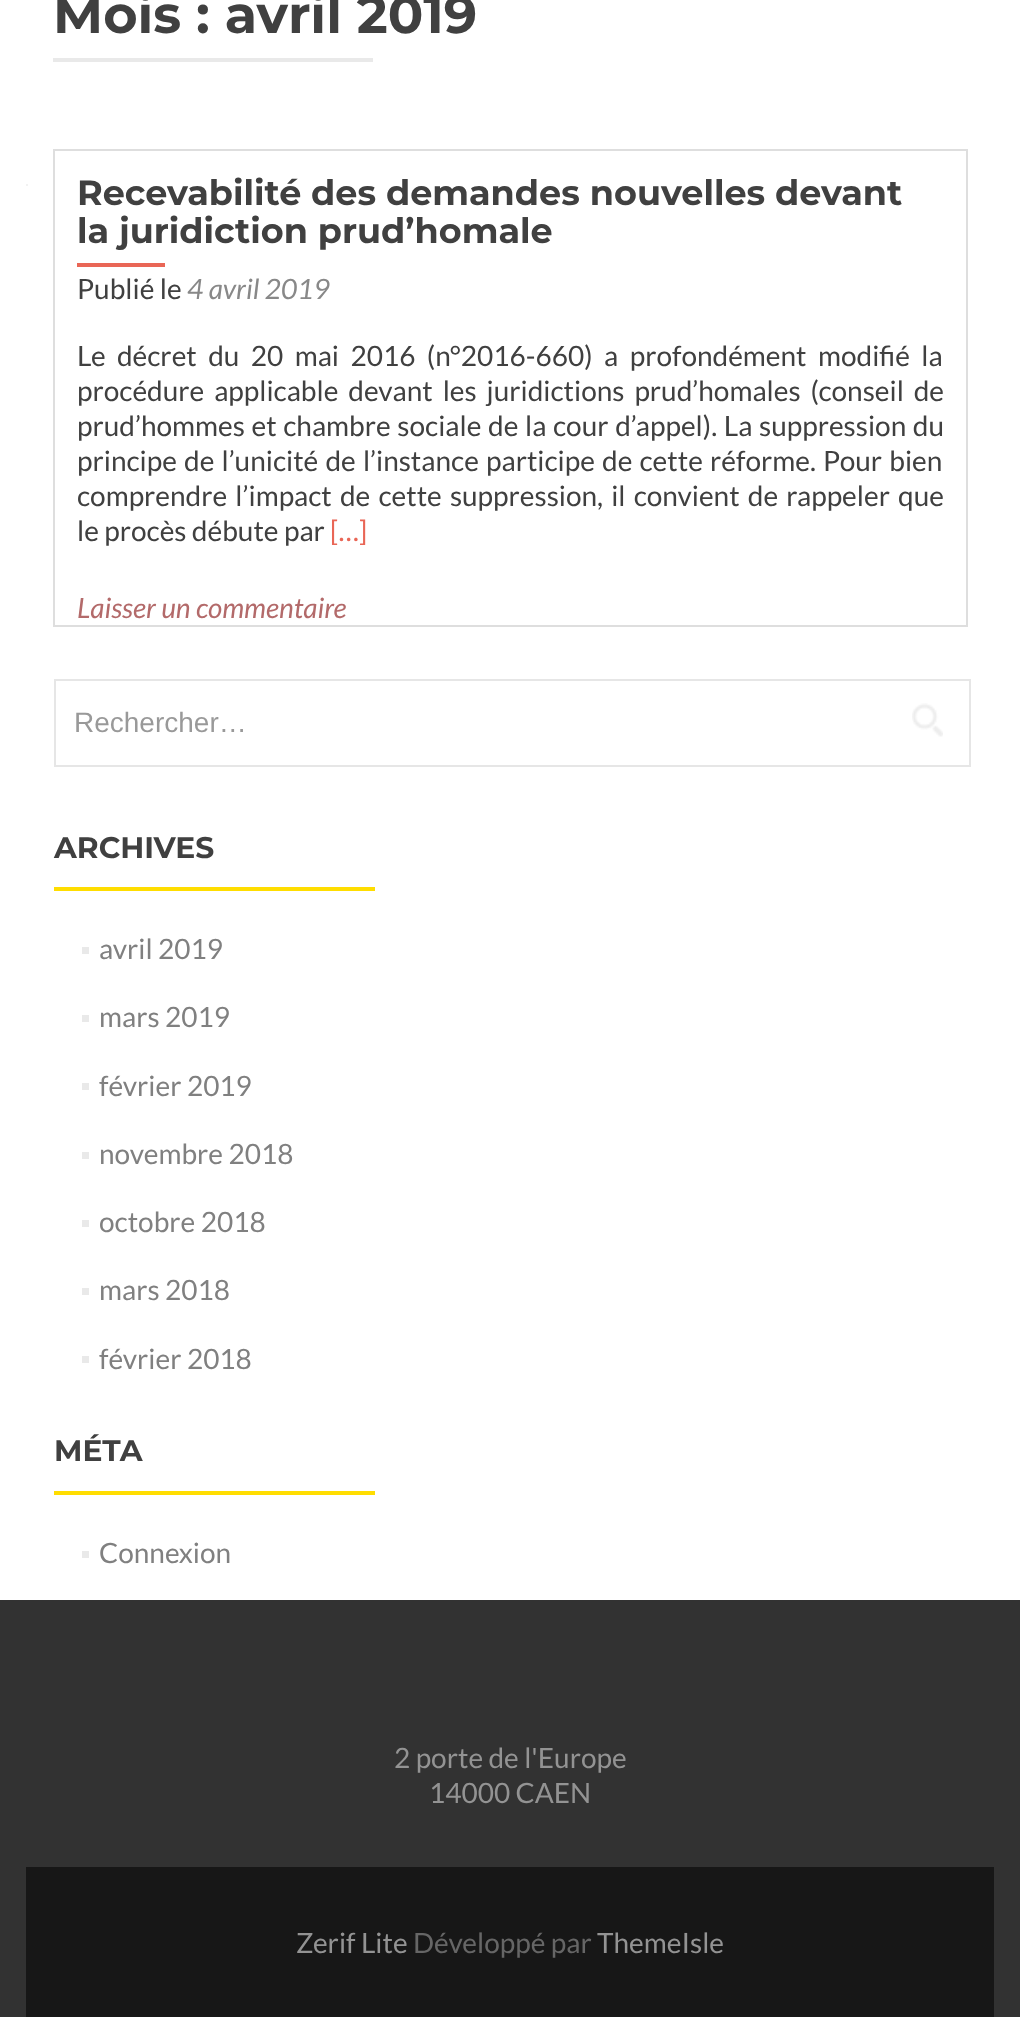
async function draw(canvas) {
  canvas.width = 1020;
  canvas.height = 2017;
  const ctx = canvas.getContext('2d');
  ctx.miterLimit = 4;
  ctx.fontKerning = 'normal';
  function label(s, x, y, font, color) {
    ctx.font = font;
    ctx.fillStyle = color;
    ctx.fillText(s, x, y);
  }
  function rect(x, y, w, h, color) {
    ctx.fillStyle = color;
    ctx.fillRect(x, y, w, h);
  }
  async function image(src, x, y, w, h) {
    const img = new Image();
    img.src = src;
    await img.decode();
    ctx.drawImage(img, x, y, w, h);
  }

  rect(0, 0, 1020, 2017, '#fff');
  label('Mois : avril 2019', 53, 33, 'bold 52.5px Montserrat', '#404040');
  rect(53, 58, 320, 4, '#e9e9e9');
  ctx.strokeStyle = '#dedede';
  ctx.lineWidth = 2;
  ctx.strokeRect(54, 150, 913, 476);
  label('Recevabilité des demandes nouvelles devant', 77, 205, 'bold 35px Montserrat', '#404040');
  label('la juridiction prud’homale', 77, 243, 'bold 35px Montserrat', '#404040');
  rect(77, 263, 88, 4, '#e96656');
  label('Publié le', 77, 299, '28px Lato', '#404040');
  label('4 avril 2019', 187, 299, 'italic 28px Lato', '#888');
  ctx.wordSpacing = '6px';
  label('Le décret du 20 mai 2016 (n°2016-660) a profondément modifié la', 77, 366, '28px Lato', '#404040');
  ctx.wordSpacing = '4.5px';
  label('procédure applicable devant les juridictions prud’homales (conseil de', 77, 401, '28px Lato', '#404040');
  ctx.wordSpacing = '1.25px';
  label('prud’hommes et chambre sociale de la cour d’appel). La suppression du', 77, 436, '28px Lato', '#404040');
  ctx.wordSpacing = '1.75px';
  label('principe de l’unicité de l’instance participe de cette réforme. Pour bien', 77, 471, '28px Lato', '#404040');
  ctx.wordSpacing = '2.75px';
  label('comprendre l’impact de cette suppression, il convient de rappeler que', 77, 506, '28px Lato', '#404040');
  ctx.wordSpacing = '0px';
  label('le procès débute par', 77, 541, '28px Lato', '#404040');
  label('[…]', 330, 541, '28px Lato', '#e96656');
  label('Laisser un commentaire', 77, 618, 'italic 28px Lato', '#b36a6a');
  rect(26, 184, 2, 2, '#f2f2f2');
  ctx.strokeStyle = '#e6e6e6';
  ctx.strokeRect(55, 680, 915, 86);
  label('Rechercher…', 74, 732, '28px Liberation Sans', '#999');
  await image('assets/img1.png', 912, 703, 31, 34);
  label('ARCHIVES', 54, 858, 'bold 29.75px Montserrat', '#404040');
  rect(54, 887, 321, 4, '#fd0');
  rect(82, 947, 7, 7, '#e9e9e9');
  label('avril 2019', 99, 959, '28px Lato', '#808080');
  rect(82, 1015, 7, 7, '#e9e9e9');
  label('mars 2019', 99, 1027, '28px Lato', '#808080');
  rect(82, 1083, 7, 7, '#e9e9e9');
  label('février 2019', 99, 1096, '28px Lato', '#808080');
  rect(82, 1152, 7, 7, '#e9e9e9');
  label('novembre 2018', 99, 1164, '28px Lato', '#808080');
  rect(82, 1220, 7, 7, '#e9e9e9');
  label('octobre 2018', 99, 1232, '28px Lato', '#808080');
  rect(82, 1288, 7, 7, '#e9e9e9');
  label('mars 2018', 99, 1300, '28px Lato', '#808080');
  rect(82, 1356, 7, 7, '#e9e9e9');
  label('février 2018', 99, 1369, '28px Lato', '#808080');
  label('MÉTA', 54, 1461, 'bold 29.75px Montserrat', '#404040');
  rect(54, 1491, 321, 4, '#fd0');
  rect(82, 1551, 7, 7, '#e9e9e9');
  label('Connexion', 99, 1563, '28px Lato', '#808080');
  rect(0, 1600, 1020, 417, '#323232');
  label('2 porte de l\'Europe', 394, 1768, '28px Lato', '#939393');
  label('14000 CAEN', 429, 1803, '28px Lato', '#939393');
  rect(26, 1867, 968, 150, '#171717');
  label('Zerif Lite', 296, 1953, '28px Lato', '#939393');
  label('Développé par', 413, 1953, '28px Lato', '#666');
  label('ThemeIsle', 597, 1953, '28px Lato', '#939393');
}

draw(document.querySelector('canvas'));
